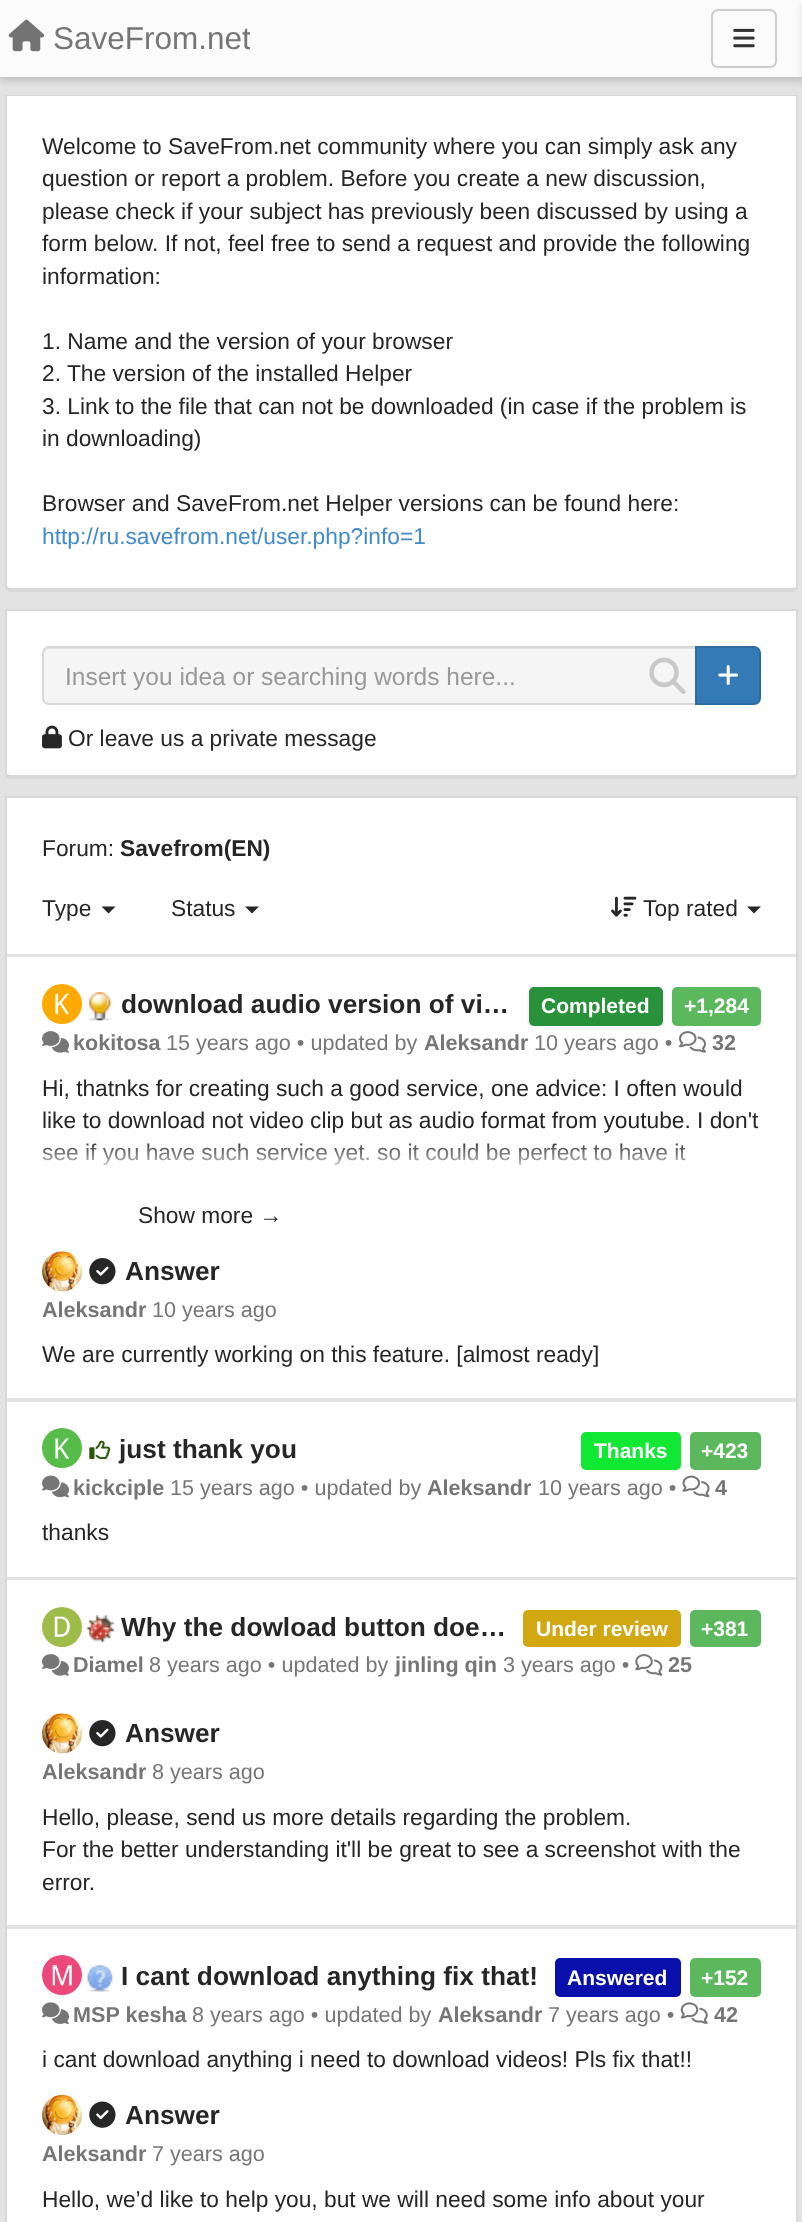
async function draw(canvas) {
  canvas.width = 802;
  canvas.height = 2222;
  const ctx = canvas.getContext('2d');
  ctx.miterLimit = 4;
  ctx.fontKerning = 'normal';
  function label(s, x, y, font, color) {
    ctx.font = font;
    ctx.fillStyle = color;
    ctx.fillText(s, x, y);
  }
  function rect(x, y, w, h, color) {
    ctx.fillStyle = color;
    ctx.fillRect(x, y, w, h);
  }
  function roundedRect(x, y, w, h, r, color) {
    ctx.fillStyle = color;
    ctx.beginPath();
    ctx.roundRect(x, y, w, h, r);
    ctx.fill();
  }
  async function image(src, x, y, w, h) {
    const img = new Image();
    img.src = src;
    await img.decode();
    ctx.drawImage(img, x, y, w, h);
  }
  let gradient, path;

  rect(0, 0, 802, 2222, '#e3e3e3');
  ctx.fillStyle = '#00000026';
  ctx.filter = 'blur(3.5px)';
  ctx.beginPath();
  ctx.rect(0, 4, 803, 77);
  ctx.fill();
  ctx.filter = 'none';
  rect(0, 0, 802, 77, '#fbfbfb');
  await image('assets/img1.png', 8, 19, 37, 33);
  ctx.save();
  ctx.beginPath();
  ctx.rect(53, 21, 197, 35);
  ctx.clip();
  label('SaveFrom.net', 53, 49, '31.5px Liberation Sans', '#767676');
  ctx.restore();
  ctx.beginPath();
  ctx.roundRect(712, 10, 64, 57, 6);
  ctx.strokeStyle = '#ccc';
  ctx.lineWidth = 2;
  ctx.stroke();
  await image('assets/img2.png', 733, 28, 22, 20);
  ctx.fillStyle = '#00000026';
  ctx.filter = 'blur(3.5px)';
  ctx.beginPath();
  ctx.rect(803, 4, 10, 77);
  ctx.fill();
  ctx.filter = 'none';
  rect(5, 95, 793, 1, '#d8d8d8');
  ctx.fillStyle = '#fff';
  path = new Path2D('M7 96H796V586C796 587 795 588 793 588H10C9 588 7 587 7 586Z');
  ctx.fill(path);
  ctx.fillStyle = '#d8d8d8';
  path = new Path2D('M5 96H798V586C798 589 796 592 793 592H10C8 592 5 589 5 586ZM7 96H796V586C796 587 795 588 793 588H10C9 588 7 587 7 586Z');
  ctx.fill(path, 'evenodd');
  label('Welcome to SaveFrom.net community where you can simply ask any', 42, 154, '22.75px Liberation Sans', '#262626');
  label('question or report a problem. Before you create a new discussion,', 42, 186, '22.75px Liberation Sans', '#262626');
  label('please check if your subject has previously been discussed by using a', 42, 219, '22.75px Liberation Sans', '#262626');
  label('form below. If not, feel free to send a request and provide the following', 42, 251, '22.75px Liberation Sans', '#262626');
  label('information:', 42, 284, '22.75px Liberation Sans', '#262626');
  label('1. Name and the version of your browser', 42, 349, '22.75px Liberation Sans', '#262626');
  label('2. The version of the installed Helper', 42, 381, '22.75px Liberation Sans', '#262626');
  label('3. Link to the file that can not be downloaded (in case if the problem is', 42, 414, '22.75px Liberation Sans', '#262626');
  label('in downloading)', 42, 446, '22.75px Liberation Sans', '#262626');
  label('Browser and SaveFrom.net Helper versions can be found here:', 42, 511, '22.75px Liberation Sans', '#262626');
  label('http://ru.savefrom.net/user.php?info=1', 42, 544, '22.75px Liberation Sans', '#428bca');
  rect(5, 609, 793, 2, '#d8d8d8');
  ctx.fillStyle = '#fff';
  path = new Path2D('M7 611H796V774C796 774 795 775 793 775H10C9 775 7 774 7 774Z');
  ctx.fill(path);
  ctx.fillStyle = '#d8d8d8';
  path = new Path2D('M5 611H798V774C798 776 796 779 793 779H10C8 779 5 776 5 774ZM7 611H796V774C796 774 795 775 793 775H10C9 775 7 774 7 774Z');
  ctx.fill(path, 'evenodd');
  ctx.fillStyle = '#f5f5f5';
  ctx.beginPath();
  ctx.roundRect(42, 646, 655, 59, [7, 0, 0, 7]);
  ctx.fill();
  ctx.fillStyle = '#e3e3e3';
  path = new Path2D('M49 649H695V648H49C46 648 44 651 44 654C44 652 46 649 49 649Z');
  ctx.fill(path);
  ctx.beginPath();
  ctx.roundRect(43, 647, 653, 57, [6, 0, 0, 6]);
  ctx.strokeStyle = '#d8d8d8';
  ctx.stroke();
  label('Insert you idea or searching words here...', 65, 685, '24.5px Liberation Sans', '#999');
  await image('assets/img3.png', 649, 657, 37, 37);
  ctx.fillStyle = '#337ab7';
  ctx.beginPath();
  ctx.roundRect(696, 647, 64, 57, [0, 6, 6, 0]);
  ctx.fill();
  ctx.strokeStyle = '#2e6da4';
  ctx.stroke();
  await image('assets/img4.png', 718, 665, 21, 20);
  await image('assets/img5.png', 42, 725, 20, 24);
  label('Or leave us a private message', 68, 746, '22.75px Liberation Sans', '#262626');
  rect(5, 796, 793, 2, '#d8d8d8');
  path = new Path2D('M5 798H798V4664C798 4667 796 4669 793 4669H10C8 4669 5 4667 5 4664ZM7 798H796V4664C796 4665 795 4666 793 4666H10C9 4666 7 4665 7 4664Z');
  ctx.fill(path, 'evenodd');
  rect(7, 798, 789, 156, '#fff');
  label('Forum:', 42, 856, '22.75px Liberation Sans', '#262626');
  label('Savefrom(EN)', 120, 856, 'bold 22.75px Liberation Sans', '#262626');
  label('Type', 42, 916, '22.75px Liberation Sans', '#262626');
  path = new Path2D('M101.5 906.5H115.5L108.5 913.5Z');
  ctx.fill(path);
  label('Status', 171, 916, '22.75px Liberation Sans', '#262626');
  path = new Path2D('M245 906.5H259L252 913.5Z');
  ctx.fill(path);
  await image('assets/img6.png', 611, 896, 26, 21);
  label('Top rated', 643, 916, '22.75px Liberation Sans', '#262626');
  path = new Path2D('M747 906.5H761L754 913.5Z');
  ctx.fill(path);
  rect(7, 957, 789, 441, '#fff');
  ctx.fillStyle = '#fa0';
  ctx.beginPath();
  ctx.arc(62, 1004, 20, 0, 2 * Math.PI);
  ctx.fill();
  await image('assets/img7.png', 55, 993, 14, 22);
  await image('assets/img8.png', 87, 992, 25, 29);
  label('download audio version of vi…', 121, 1013, 'bold 26.25px Liberation Sans', '#262626');
  roundedRect(529, 987, 134, 39, 5, '#289139');
  label('Completed', 541, 1013, 'bold 21px Liberation Sans', '#fff');
  roundedRect(672, 987, 89, 39, 5, '#5cb85c');
  label('+1,284', 684, 1013, 'bold 21px Liberation Sans', '#fff');
  await image('assets/img9.png', 42, 1031, 27, 22);
  label('kokitosa', 73, 1050, 'bold 21.6px Liberation Sans', '#767676');
  label('15 years ago • updated by', 166, 1050, '21.6px Liberation Sans', '#767676');
  label('Aleksandr', 424, 1050, 'bold 21.6px Liberation Sans', '#767676');
  label('10 years ago •', 534, 1050, '21.6px Liberation Sans', '#767676');
  await image('assets/img10.png', 679, 1031, 27, 22);
  label('32', 712, 1050, 'bold 21.6px Liberation Sans', '#767676');
  label('Hi, thatnks for creating such a good service, one advice: I often would', 42, 1096, '22.75px Liberation Sans', '#262626');
  label('like to download not video clip but as audio format from youtube. I don\'t', 42, 1128, '22.75px Liberation Sans', '#262626');
  label('see if you have such service yet. so it could be perfect to have it', 42, 1160, '22.75px Liberation Sans', '#262626');
  gradient = ctx.createLinearGradient(402, 1139, 402, 1192);
  gradient.addColorStop(0, '#ffffff00');
  gradient.addColorStop(0.7, '#fff');
  ctx.fillStyle = gradient;
  ctx.fillRect(42, 1143, 644, 22);
  label('Show more →', 138, 1223, '22.75px Liberation Sans', '#262626');
  await image('assets/img11.png', 42, 1251, 41, 41);
  await image('assets/img12.png', 89, 1258, 27, 27);
  label('Answer', 125, 1280, 'bold 26.25px Liberation Sans', '#262626');
  label('Aleksandr', 42, 1317, 'bold 21.6px Liberation Sans', '#767676');
  label('10 years ago', 152, 1317, '21.6px Liberation Sans', '#767676');
  label('We are currently working on this feature. [almost ready]', 42, 1362, '22.75px Liberation Sans', '#262626');
  rect(7, 1402, 789, 175, '#fff');
  ctx.fillStyle = '#58bc4a';
  ctx.beginPath();
  ctx.arc(62, 1448, 20, 0, 2 * Math.PI);
  ctx.fill();
  await image('assets/img13.png', 55, 1438, 14, 21);
  await image('assets/img14.png', 89, 1440, 22, 20);
  label('just thank you', 119, 1458, 'bold 26.25px Liberation Sans', '#262626');
  roundedRect(581, 1432, 100, 38, 5, '#11e834');
  label('Thanks', 594, 1458, 'bold 21px Liberation Sans', '#fff');
  roundedRect(690, 1432, 71, 38, 5, '#5cb85c');
  label('+423', 701, 1458, 'bold 21px Liberation Sans', '#fff');
  await image('assets/img15.png', 42, 1475, 27, 23);
  label('kickciple', 73, 1495, 'bold 21.6px Liberation Sans', '#767676');
  label('15 years ago • updated by', 170, 1495, '21.6px Liberation Sans', '#767676');
  label('Aleksandr', 427, 1495, 'bold 21.6px Liberation Sans', '#767676');
  label('10 years ago •', 538, 1495, '21.6px Liberation Sans', '#767676');
  await image('assets/img16.png', 682, 1475, 28, 23);
  label('4', 715, 1495, 'bold 21.6px Liberation Sans', '#767676');
  label('thanks', 42, 1540, '22.75px Liberation Sans', '#262626');
  rect(7, 1580, 789, 345, '#fff');
  ctx.fillStyle = '#9dbc4a';
  ctx.beginPath();
  ctx.arc(62, 1627, 20, 0, 2 * Math.PI);
  ctx.fill();
  await image('assets/img17.png', 54, 1616, 16, 21);
  await image('assets/img18.png', 86, 1615, 28, 29);
  label('Why the dowload button doe…', 121, 1636, 'bold 26.25px Liberation Sans', '#262626');
  roundedRect(523, 1610, 158, 37, 5, '#d1a712');
  label('Under review', 536, 1636, 'bold 21px Liberation Sans', '#fff');
  roundedRect(690, 1610, 71, 37, 5, '#5cb85c');
  label('+381', 701, 1636, 'bold 21px Liberation Sans', '#fff');
  await image('assets/img9.png', 42, 1654, 27, 22);
  label('Diamel', 73, 1672, 'bold 21.6px Liberation Sans', '#767676');
  label('8 years ago • updated by', 149, 1672, '21.6px Liberation Sans', '#767676');
  label('jinling qin', 395, 1672, 'bold 21.6px Liberation Sans', '#767676');
  label('3 years ago •', 503, 1672, '21.6px Liberation Sans', '#767676');
  await image('assets/img19.png', 635, 1654, 28, 22);
  label('25', 668, 1672, 'bold 21.6px Liberation Sans', '#767676');
  await image('assets/img20.png', 42, 1713, 41, 41);
  await image('assets/img12.png', 89, 1720, 27, 27);
  label('Answer', 125, 1742, 'bold 26.25px Liberation Sans', '#262626');
  label('Aleksandr', 42, 1779, 'bold 21.6px Liberation Sans', '#767676');
  label('8 years ago', 152, 1779, '21.6px Liberation Sans', '#767676');
  label('Hello, please, send us more details regarding the problem.', 42, 1825, '22.75px Liberation Sans', '#262626');
  label('For the better understanding it\'ll be great to see a screenshot with the', 42, 1857, '22.75px Liberation Sans', '#262626');
  label('error.', 42, 1890, '22.75px Liberation Sans', '#262626');
  rect(7, 1929, 789, 293, '#fff');
  ctx.fillStyle = '#ec4879';
  ctx.beginPath();
  ctx.arc(62, 1975, 20, 0, 2 * Math.PI);
  ctx.fill();
  await image('assets/img21.png', 52, 1965, 20, 21);
  await image('assets/img22.png', 87, 1964, 26, 28);
  label('I cant download anything fix that!', 121, 1985, 'bold 26.25px Liberation Sans', '#262626');
  roundedRect(555, 1958, 126, 39, 5, '#0910ab');
  label('Answered', 567, 1985, 'bold 21px Liberation Sans', '#fff');
  roundedRect(690, 1958, 71, 39, 5, '#5cb85c');
  label('+152', 701, 1985, 'bold 21px Liberation Sans', '#fff');
  await image('assets/img23.png', 42, 2002, 27, 22);
  label('MSP kesha', 73, 2022, 'bold 21.6px Liberation Sans', '#767676');
  label('8 years ago • updated by', 192, 2022, '21.6px Liberation Sans', '#767676');
  label('Aleksandr', 438, 2022, 'bold 21.6px Liberation Sans', '#767676');
  label('7 years ago •', 548, 2022, '21.6px Liberation Sans', '#767676');
  await image('assets/img24.png', 680, 2002, 28, 22);
  label('42', 714, 2022, 'bold 21.6px Liberation Sans', '#767676');
  label('i cant download anything i need to download videos! Pls fix that!!', 42, 2067, '22.75px Liberation Sans', '#262626');
  await image('assets/img25.png', 42, 2094, 40, 41);
  await image('assets/img26.png', 89, 2101, 27, 27);
  label('Answer', 125, 2124, 'bold 26.25px Liberation Sans', '#262626');
  label('Aleksandr', 42, 2161, 'bold 21.6px Liberation Sans', '#767676');
  label('7 years ago', 152, 2161, '21.6px Liberation Sans', '#767676');
  label('Hello, we’d like to help you, but we will need some info about your', 42, 2207, '22.75px Liberation Sans', '#262626');
}

draw(document.querySelector('canvas'));
